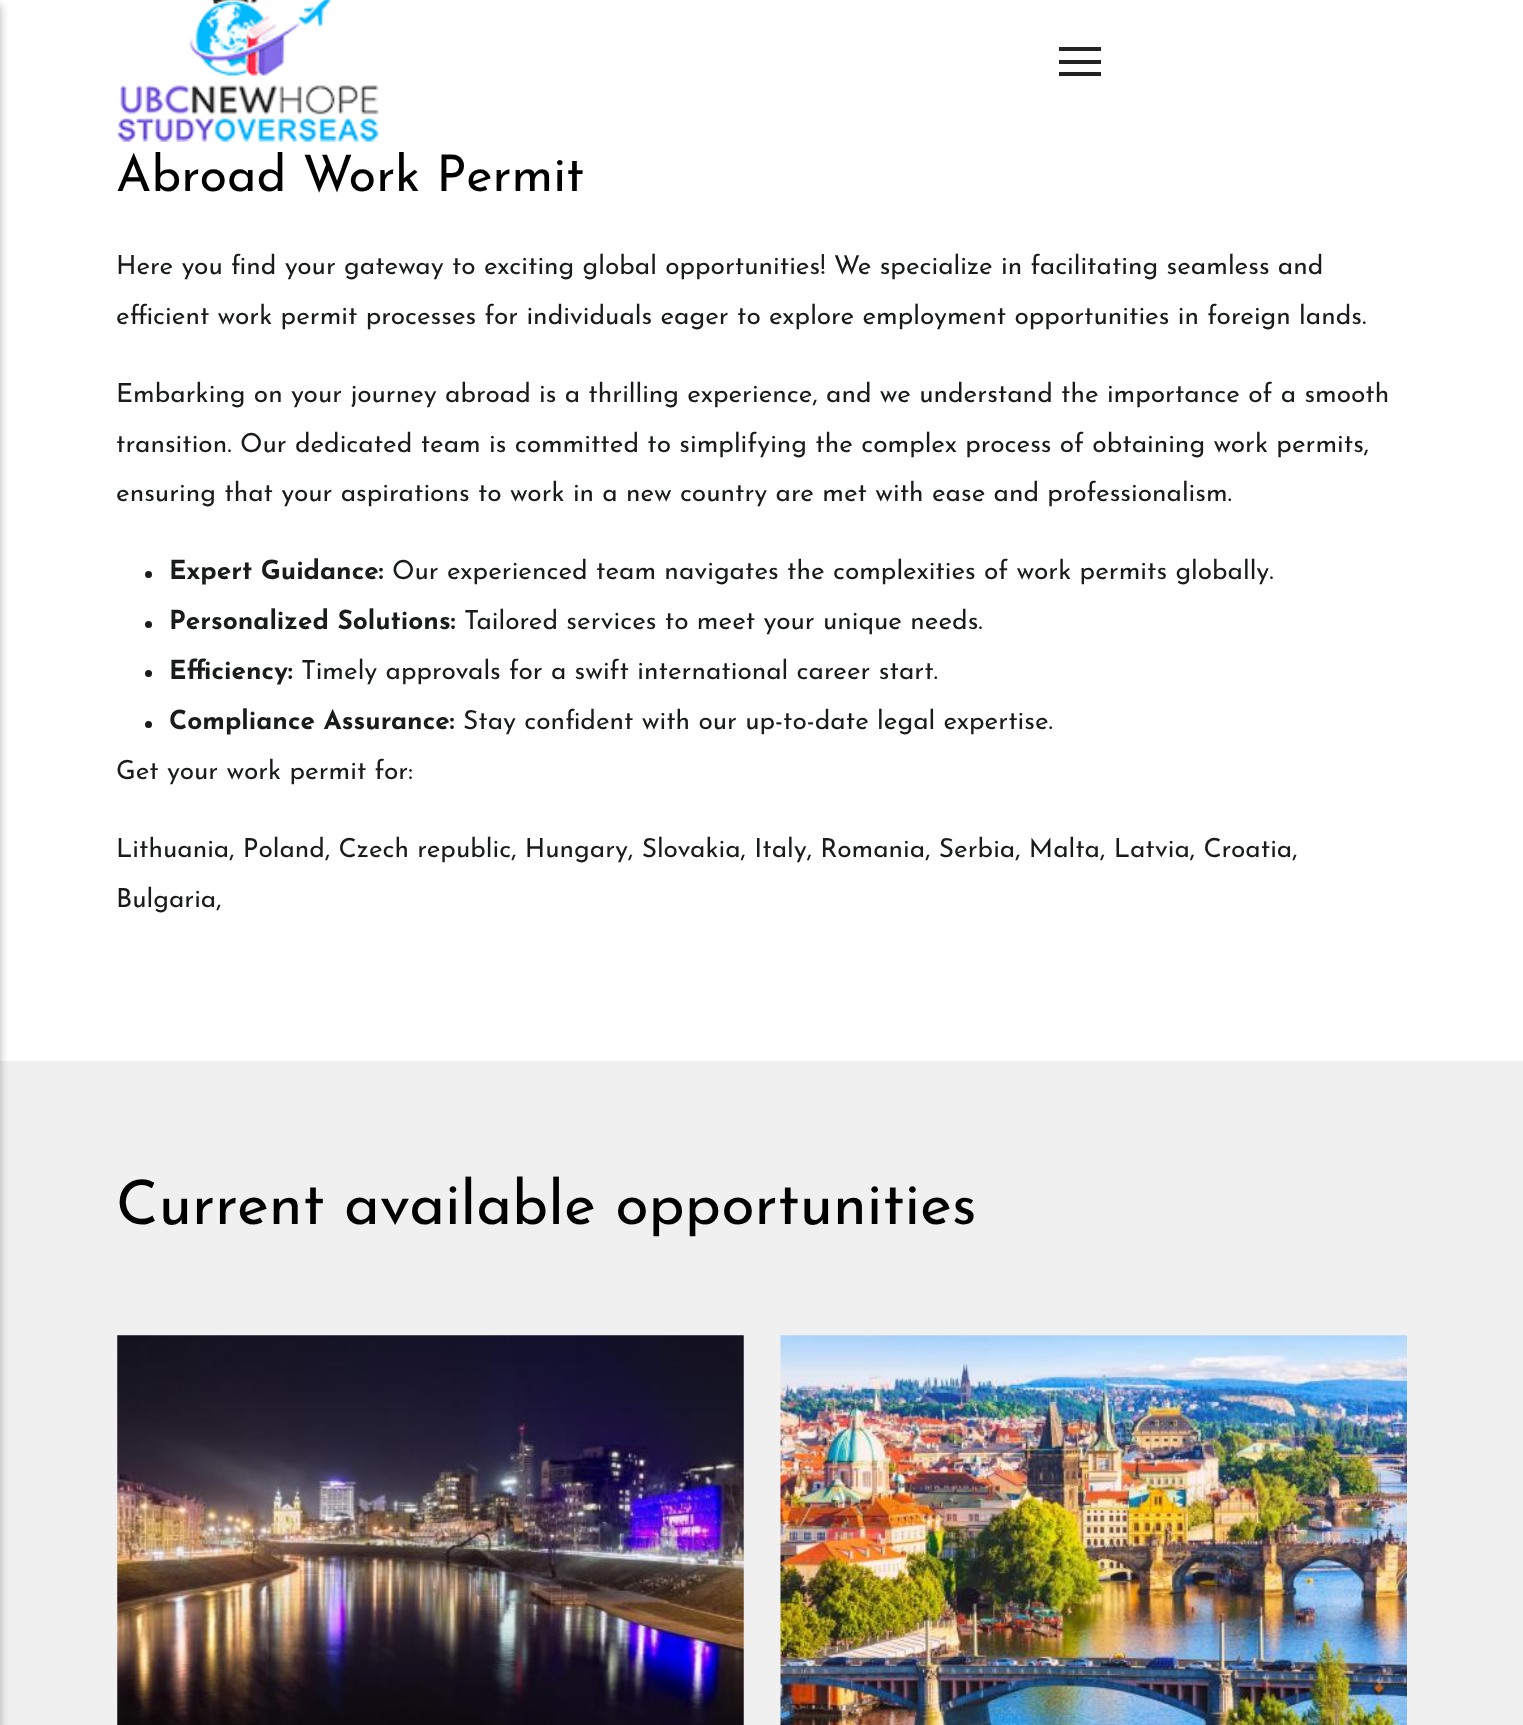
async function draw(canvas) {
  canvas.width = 1523;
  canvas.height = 1725;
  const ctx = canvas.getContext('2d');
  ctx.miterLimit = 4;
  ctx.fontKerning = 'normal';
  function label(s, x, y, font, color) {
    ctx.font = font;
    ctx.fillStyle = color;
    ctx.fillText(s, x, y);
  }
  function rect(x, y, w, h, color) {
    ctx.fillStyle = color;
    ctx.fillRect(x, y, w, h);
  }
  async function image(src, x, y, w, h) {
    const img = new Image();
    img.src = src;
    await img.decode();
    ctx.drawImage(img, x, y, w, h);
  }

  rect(0, 0, 1523, 1725, '#fff');
  rect(0, 1061, 1523, 664, '#f0f0f0');
  ctx.fillStyle = '#00000033';
  ctx.filter = 'blur(3.5px)';
  ctx.beginPath();
  ctx.rect(-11, 5, 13, 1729);
  ctx.fill();
  ctx.filter = 'none';
  rect(1059, 47, 42, 4, '#222');
  rect(1059, 60, 42, 4, '#222');
  rect(1059, 72, 42, 4, '#222');
  await image('assets/img1.png', 117, 0, 262, 142);
  label('Abroad Work Permit', 116, 191, '50.5px Josefin Sans', '#000');
  label('Here you find your gateway to exciting global opportunities! We specialize in facilitating seamless and', 116, 274, '26.25px Josefin Sans', '#191b1c');
  label('efficient work permit processes for individuals eager to explore employment opportunities in foreign lands.', 116, 324, '26.25px Josefin Sans', '#191b1c');
  label('Embarking on your journey abroad is a thrilling experience, and we understand the importance of a smooth', 116, 402, '26.25px Josefin Sans', '#191b1c');
  label('transition. Our dedicated team is committed to simplifying the complex process of obtaining work permits,', 116, 452, '26.25px Josefin Sans', '#191b1c');
  label('ensuring that your aspirations to work in a new country are met with ease and professionalism.', 116, 501, '26.25px Josefin Sans', '#191b1c');
  ctx.beginPath();
  ctx.arc(148.5, 574.5, 3.5, 0, 2 * Math.PI);
  ctx.fill();
  label('Expert Guidance:', 169, 579, 'bold 26.25px Josefin Sans', '#191b1c');
  label('Our experienced team navigates the complexities of work permits globally.', 392, 579, '26.25px Josefin Sans', '#191b1c');
  ctx.beginPath();
  ctx.arc(148.5, 624.5, 3.5, 0, 2 * Math.PI);
  ctx.fill();
  label('Personalized Solutions:', 169, 629, 'bold 26.25px Josefin Sans', '#191b1c');
  label('Tailored services to meet your unique needs.', 464, 629, '26.25px Josefin Sans', '#191b1c');
  ctx.beginPath();
  ctx.arc(148.5, 673.5, 3.5, 0, 2 * Math.PI);
  ctx.fill();
  label('Efficiency:', 169, 679, 'bold 26.25px Josefin Sans', '#191b1c');
  label('Timely approvals for a swift international career start.', 301, 679, '26.25px Josefin Sans', '#191b1c');
  ctx.beginPath();
  ctx.arc(148.5, 724.5, 3.5, 0, 2 * Math.PI);
  ctx.fill();
  label('Compliance Assurance:', 169, 729, 'bold 26.25px Josefin Sans', '#191b1c');
  label('Stay confident with our up-to-date legal expertise.', 463, 729, '26.25px Josefin Sans', '#191b1c');
  label('Get your work permit for:', 116, 779, '26.25px Josefin Sans', '#191b1c');
  label('Lithuania, Poland, Czech republic, Hungary, Slovakia, Italy, Romania, Serbia, Malta, Latvia, Croatia,', 116, 857, '26.25px Josefin Sans', '#191b1c');
  label('Bulgaria,', 116, 907, '26.25px Josefin Sans', '#191b1c');
  label('Current available opportunities', 116, 1224, '61.25px Josefin Sans', '#000');
  await image('assets/img2.png', 117, 1335, 627, 390);
  await image('assets/img3.png', 780, 1335, 627, 390);
}

draw(document.querySelector('canvas'));
